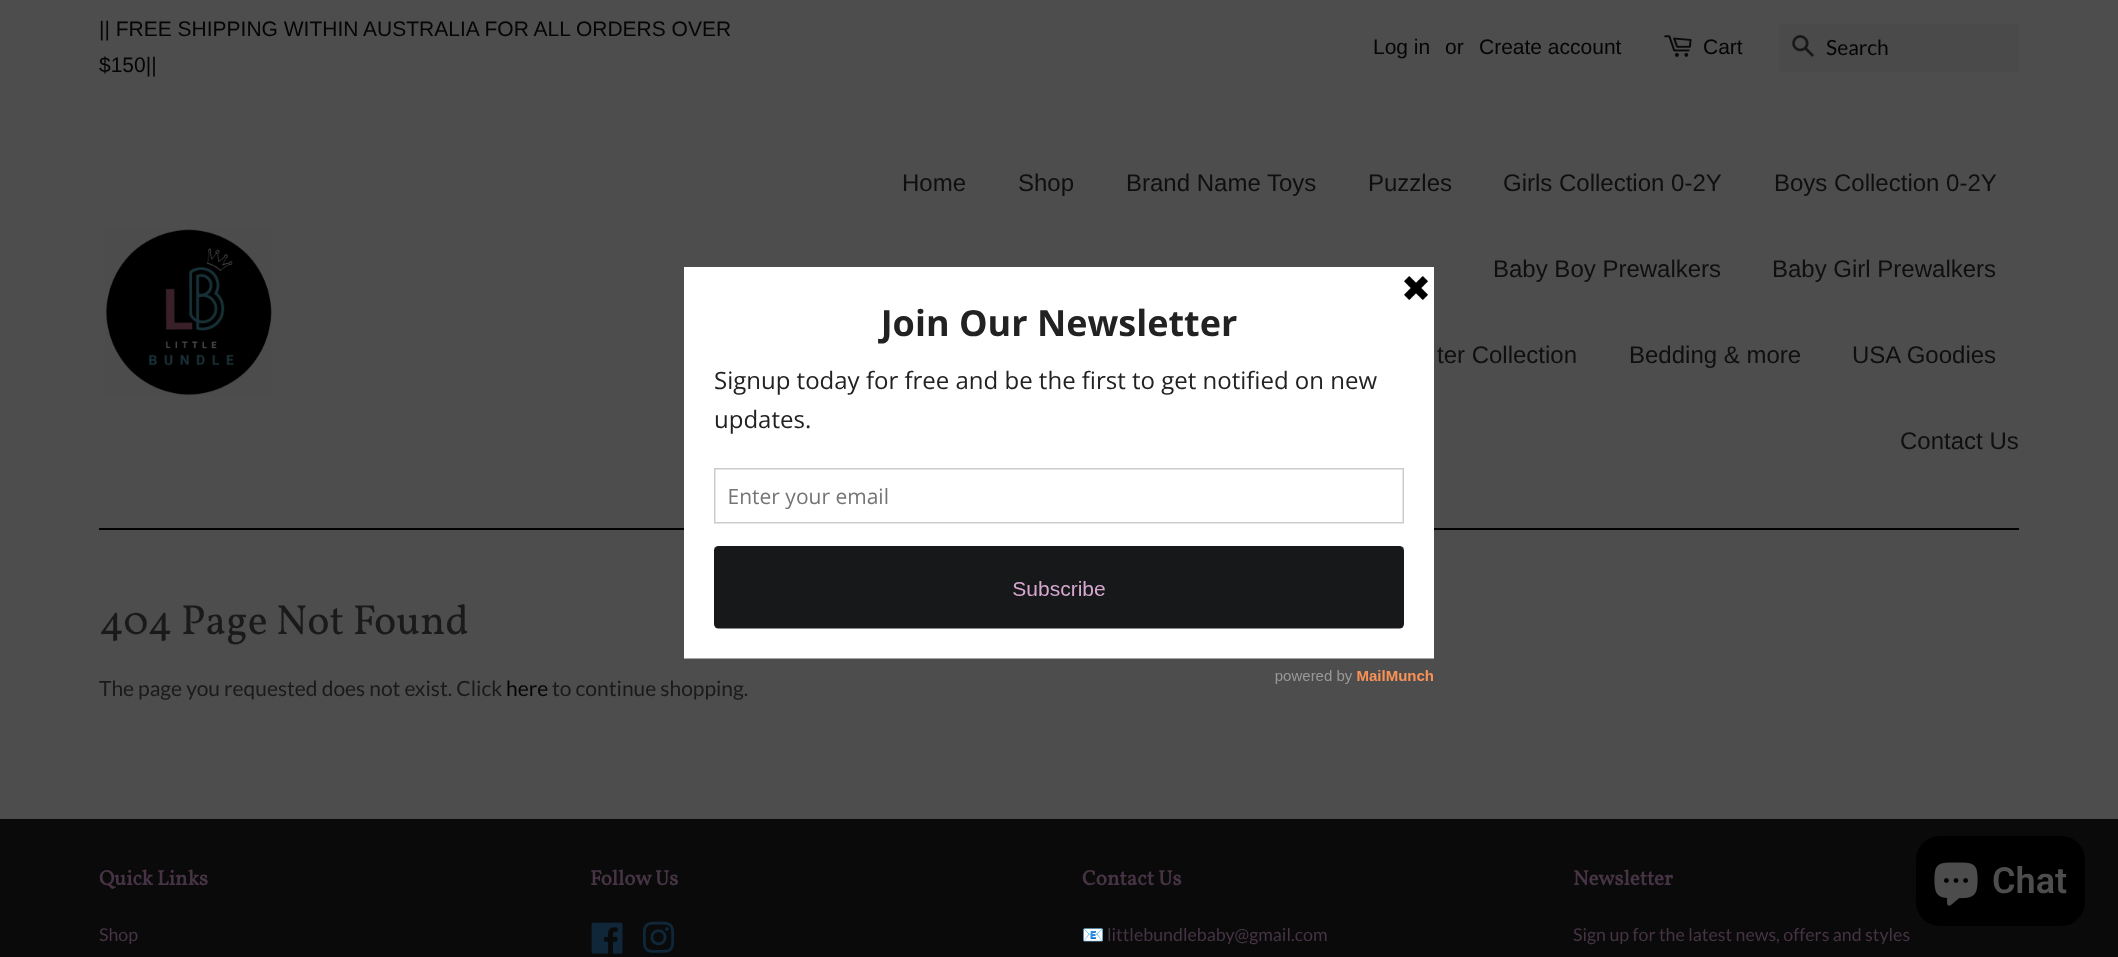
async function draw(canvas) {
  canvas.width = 2118;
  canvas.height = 957;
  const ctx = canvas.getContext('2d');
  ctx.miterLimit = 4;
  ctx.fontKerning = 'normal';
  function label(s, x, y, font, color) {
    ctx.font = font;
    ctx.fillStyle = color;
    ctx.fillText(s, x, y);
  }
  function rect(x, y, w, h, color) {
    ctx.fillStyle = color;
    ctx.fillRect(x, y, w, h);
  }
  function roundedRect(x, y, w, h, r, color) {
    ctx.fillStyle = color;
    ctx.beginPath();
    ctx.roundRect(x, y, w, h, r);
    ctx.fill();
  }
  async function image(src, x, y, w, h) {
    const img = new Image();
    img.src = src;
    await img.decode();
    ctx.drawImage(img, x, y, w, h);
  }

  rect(0, 0, 2118, 957, '#4d4d4d');
  label('|| FREE SHIPPING WITHIN AUSTRALIA FOR ALL ORDERS OVER', 99, 36, '21px Liberation Sans', '#050505');
  label('$150||', 99, 72, '21px Liberation Sans', '#050505');
  label('Log in', 1373, 54, '21px Liberation Sans', '#050505');
  label('or', 1445, 54, '21px Liberation Sans', '#050505');
  label('Create account', 1479, 54, '21px Liberation Sans', '#050505');
  await image('assets/img1.png', 1664, 35, 28, 22);
  label('Cart', 1703, 54, '21px Liberation Sans', '#050505');
  roundedRect(1779, 24, 240, 48, 3, '#4a4a4a');
  await image('assets/img2.png', 1792, 35, 22, 22);
  label('Search', 1826, 55, '21px Lato', '#050505');
  rect(99, 528, 1920, 2, '#030202');
  await image('assets/img3.png', 105, 229, 167, 167);
  label('Home', 902, 191, '24px Liberation Sans', '#0f0f0f');
  label('Shop', 1018, 191, '24px Liberation Sans', '#0f0f0f');
  label('Brand Name Toys', 1126, 191, '24px Liberation Sans', '#0f0f0f');
  label('Puzzles', 1368, 191, '24px Liberation Sans', '#0f0f0f');
  label('Girls Collection 0-2Y', 1503, 191, '24px Liberation Sans', '#0f0f0f');
  label('Boys Collection 0-2Y', 1774, 191, '24px Liberation Sans', '#0f0f0f');
  label('Baby Boy Prewalkers', 1493, 277, '24px Liberation Sans', '#0f0f0f');
  label('Baby Girl Prewalkers', 1772, 277, '24px Liberation Sans', '#0f0f0f');
  label('ter Collection', 1437, 363, '24px Liberation Sans', '#0f0f0f');
  label('Bedding & more', 1629, 363, '24px Liberation Sans', '#0f0f0f');
  label('USA Goodies', 1852, 363, '24px Liberation Sans', '#0f0f0f');
  label('Contact Us', 1900, 449, '24px Liberation Sans', '#0f0f0f');
  label('404 Page Not Found', 99, 634, '42px Vollkorn', '#1a1a1a');
  label('The page you requested does not exist. Click', 99, 696, '21px Lato', '#1a1a1a');
  label('here', 506, 696, '21px Lato', '#050505');
  label('to continue shopping.', 552, 696, '21px Lato', '#1a1a1a');
  await image('assets/img4.png', 684, 267, 750, 417);
  rect(0, 819, 2118, 138, '#0a0a0a');
  label('Quick Links', 99, 885, 'bold 21px Vollkorn', '#463444');
  label('Shop', 99, 941, '17.8px Lato', '#463444');
  label('Follow Us', 590, 885, 'bold 21px Vollkorn', '#463444');
  await image('assets/img5.png', 591, 922, 32, 32);
  await image('assets/img6.png', 642, 921, 33, 32);
  label('Contact Us', 1082, 885, 'bold 21px Vollkorn', '#463444');
  label('📧', 1082, 941, '17.8px Noto Color Emoji', '#463444');
  label('littlebundlebaby@gmail.com', 1107, 941, '17.8px Lato', '#463444');
  label('Newsletter', 1573, 885, 'bold 21px Vollkorn', '#463444');
  label('Sign up for the latest news, offers and styles', 1573, 941, '17.8px Lato', '#463444');
  roundedRect(1916, 836, 169, 90, 24, '#000');
  await image('assets/img7.png', 1934, 862, 44, 44);
  label('Chat', 1992, 893, '600 36px Roboto', '#4d4d4d');
}

draw(document.querySelector('canvas'));
